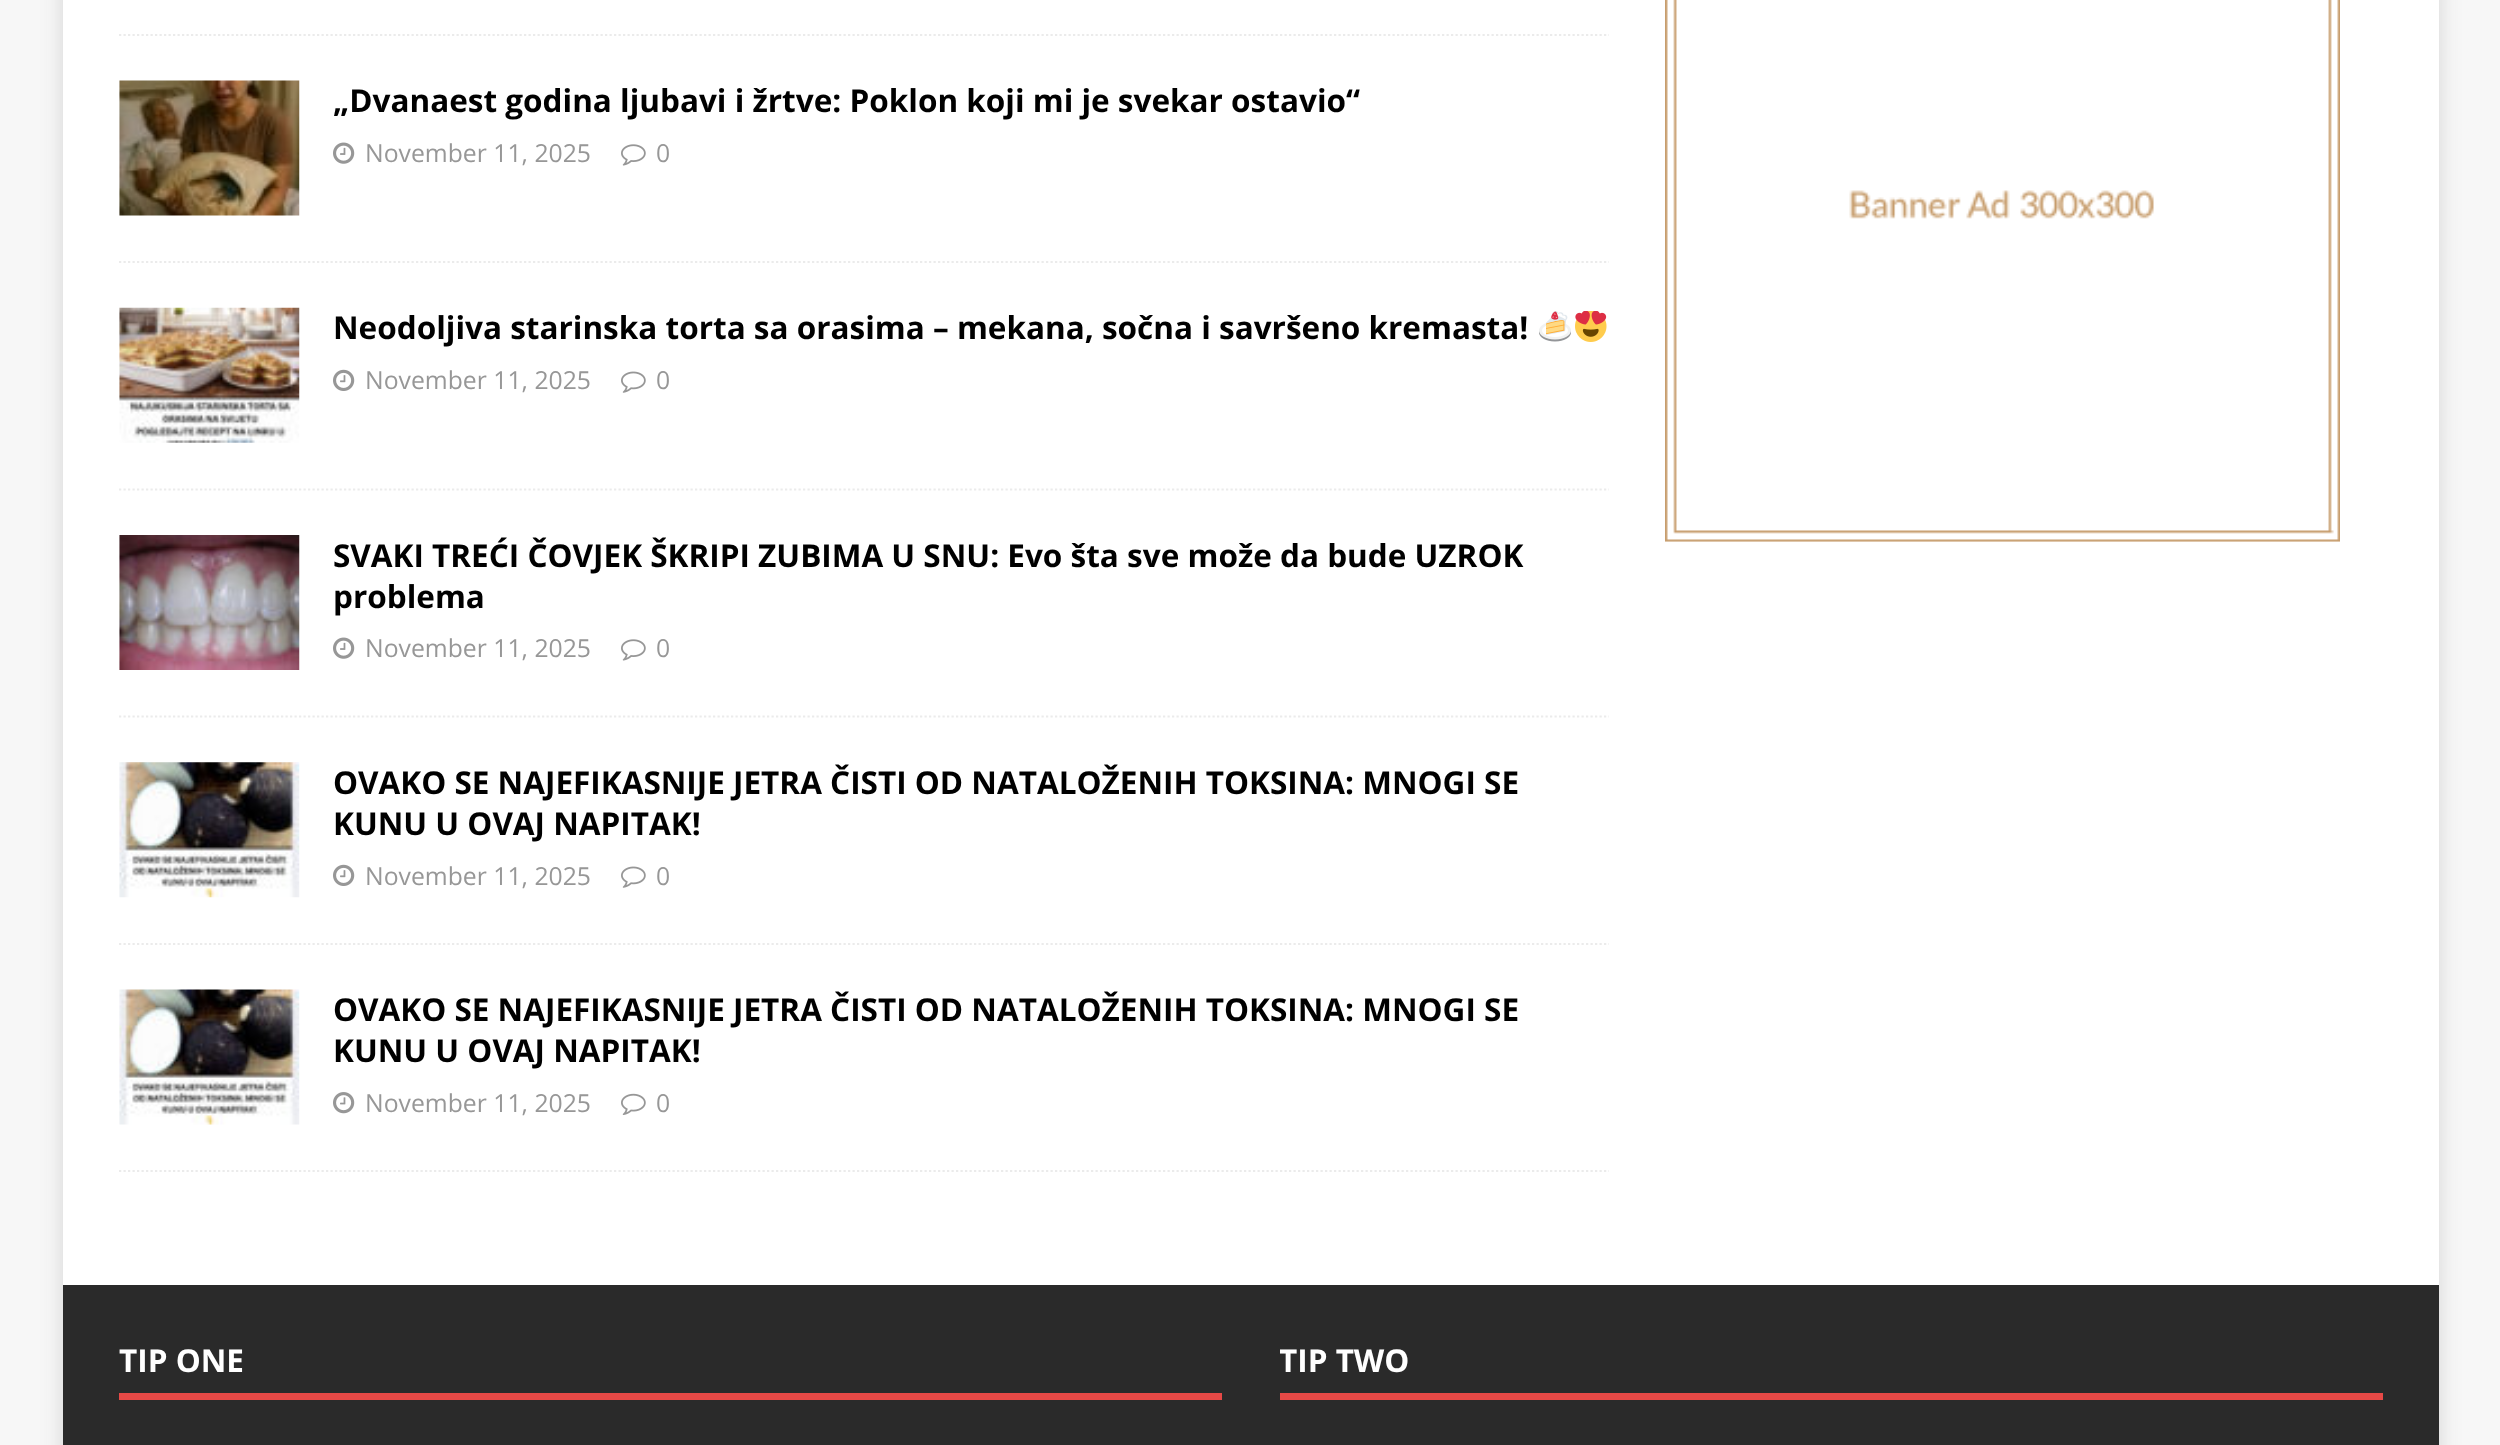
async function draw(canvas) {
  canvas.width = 2500;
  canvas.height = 1445;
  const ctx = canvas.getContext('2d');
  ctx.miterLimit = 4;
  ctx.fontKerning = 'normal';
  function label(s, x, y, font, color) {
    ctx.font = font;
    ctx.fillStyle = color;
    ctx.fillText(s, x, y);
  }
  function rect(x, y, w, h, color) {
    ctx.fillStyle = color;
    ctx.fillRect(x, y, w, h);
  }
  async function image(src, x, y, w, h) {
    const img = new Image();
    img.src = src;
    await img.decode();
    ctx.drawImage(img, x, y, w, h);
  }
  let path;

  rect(0, 0, 2500, 1445, '#f7f7f7');
  ctx.fillStyle = '#3232322b';
  ctx.filter = 'blur(11px)';
  ctx.beginPath();
  ctx.rect(63, -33, 2376, 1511);
  ctx.fill();
  ctx.filter = 'none';
  rect(63, 0, 2376, 1285, '#fff');
  path = new Path2D('M119 35H1609');
  ctx.strokeStyle = '#ebebeb';
  ctx.lineWidth = 2.2;
  ctx.setLineDash([2.25, 2.25]);
  ctx.stroke(path);
  path = new Path2D('M119 262H1609');
  ctx.stroke(path);
  await image('assets/img1.png', 119, 80, 181, 136);
  label('„Dvanaest godina ljubavi i žrtve: Poklon koji mi je svekar ostavio“', 333, 112, 'bold 31.5px Open Sans', '#000');
  await image('assets/img2.png', 333, 142, 22, 22);
  label('November 11, 2025', 365, 162, '24.75px Open Sans', '#979797');
  await image('assets/img3.png', 621, 144, 25, 22);
  label('0', 656, 162, '24.75px Open Sans', '#979797');
  path = new Path2D('M119 489.5H1609');
  ctx.stroke(path);
  await image('assets/img4.png', 119, 307, 181, 136);
  label('Neodoljiva starinska torta sa orasima – mekana, sočna i savršeno kremasta!', 333, 339, 'bold 31.5px Open Sans', '#000');
  await image('assets/img5.png', 1539, 311, 32, 31);
  await image('assets/img6.png', 1575, 311, 32, 31);
  await image('assets/img7.png', 333, 369, 22, 22);
  label('November 11, 2025', 365, 389, '24.75px Open Sans', '#979797');
  await image('assets/img8.png', 621, 371, 25, 22);
  label('0', 656, 389, '24.75px Open Sans', '#979797');
  path = new Path2D('M119 716.5H1609');
  ctx.stroke(path);
  await image('assets/img9.png', 119, 535, 181, 135);
  label('SVAKI TREĆI ČOVJEK ŠKRIPI ZUBIMA U SNU: Evo šta sve može da bude UZROK', 333, 567, 'bold 31.5px Open Sans', '#000');
  label('problema', 333, 608, 'bold 31.5px Open Sans', '#000');
  await image('assets/img2.png', 333, 637, 22, 22);
  label('November 11, 2025', 365, 657, '24.75px Open Sans', '#979797');
  await image('assets/img3.png', 621, 639, 25, 22);
  label('0', 656, 657, '24.75px Open Sans', '#979797');
  path = new Path2D('M119 944H1609');
  ctx.stroke(path);
  await image('assets/img10.png', 119, 762, 181, 136);
  label('OVAKO SE NAJEFIKASNIJE JETRA ČISTI OD NATALOŽENIH TOKSINA: MNOGI SE', 333, 794, 'bold 31.5px Open Sans', '#000');
  label('KUNU U OVAJ NAPITAK!', 333, 835, 'bold 31.5px Open Sans', '#000');
  await image('assets/img7.png', 333, 864, 22, 22);
  label('November 11, 2025', 365, 885, '24.75px Open Sans', '#979797');
  await image('assets/img8.png', 621, 866, 25, 22);
  label('0', 656, 885, '24.75px Open Sans', '#979797');
  ctx.save();
  ctx.beginPath();
  ctx.rect(119, 0, 1490, 1172);
  ctx.clip();
  path = new Path2D('M119 1171H1609');
  ctx.stroke(path);
  ctx.restore();
  await image('assets/img11.png', 119, 989, 181, 136);
  label('OVAKO SE NAJEFIKASNIJE JETRA ČISTI OD NATALOŽENIH TOKSINA: MNOGI SE', 333, 1021, 'bold 31.5px Open Sans', '#000');
  label('KUNU U OVAJ NAPITAK!', 333, 1062, 'bold 31.5px Open Sans', '#000');
  await image('assets/img12.png', 333, 1092, 22, 22);
  label('November 11, 2025', 365, 1112, '24.75px Open Sans', '#979797');
  await image('assets/img13.png', 621, 1093, 25, 22);
  label('0', 656, 1112, '24.75px Open Sans', '#979797');
  await image('assets/img14.png', 1665, 0, 675, 542);
  rect(63, 1285, 2376, 160, '#2a2a2a');
  rect(119, 1393, 1103, 7, '#e64946');
  label('TIP ONE', 119, 1372, 'bold 31.5px Open Sans', '#fff');
  rect(1280, 1393, 1103, 7, '#e64946');
  ctx.save();
  ctx.beginPath();
  ctx.rect(1280, 1341, 1103, 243);
  ctx.clip();
  label('TIP TWO', 1279, 1372, 'bold 31.5px Open Sans', '#fff');
  ctx.restore();
}

draw(document.querySelector('canvas'));
